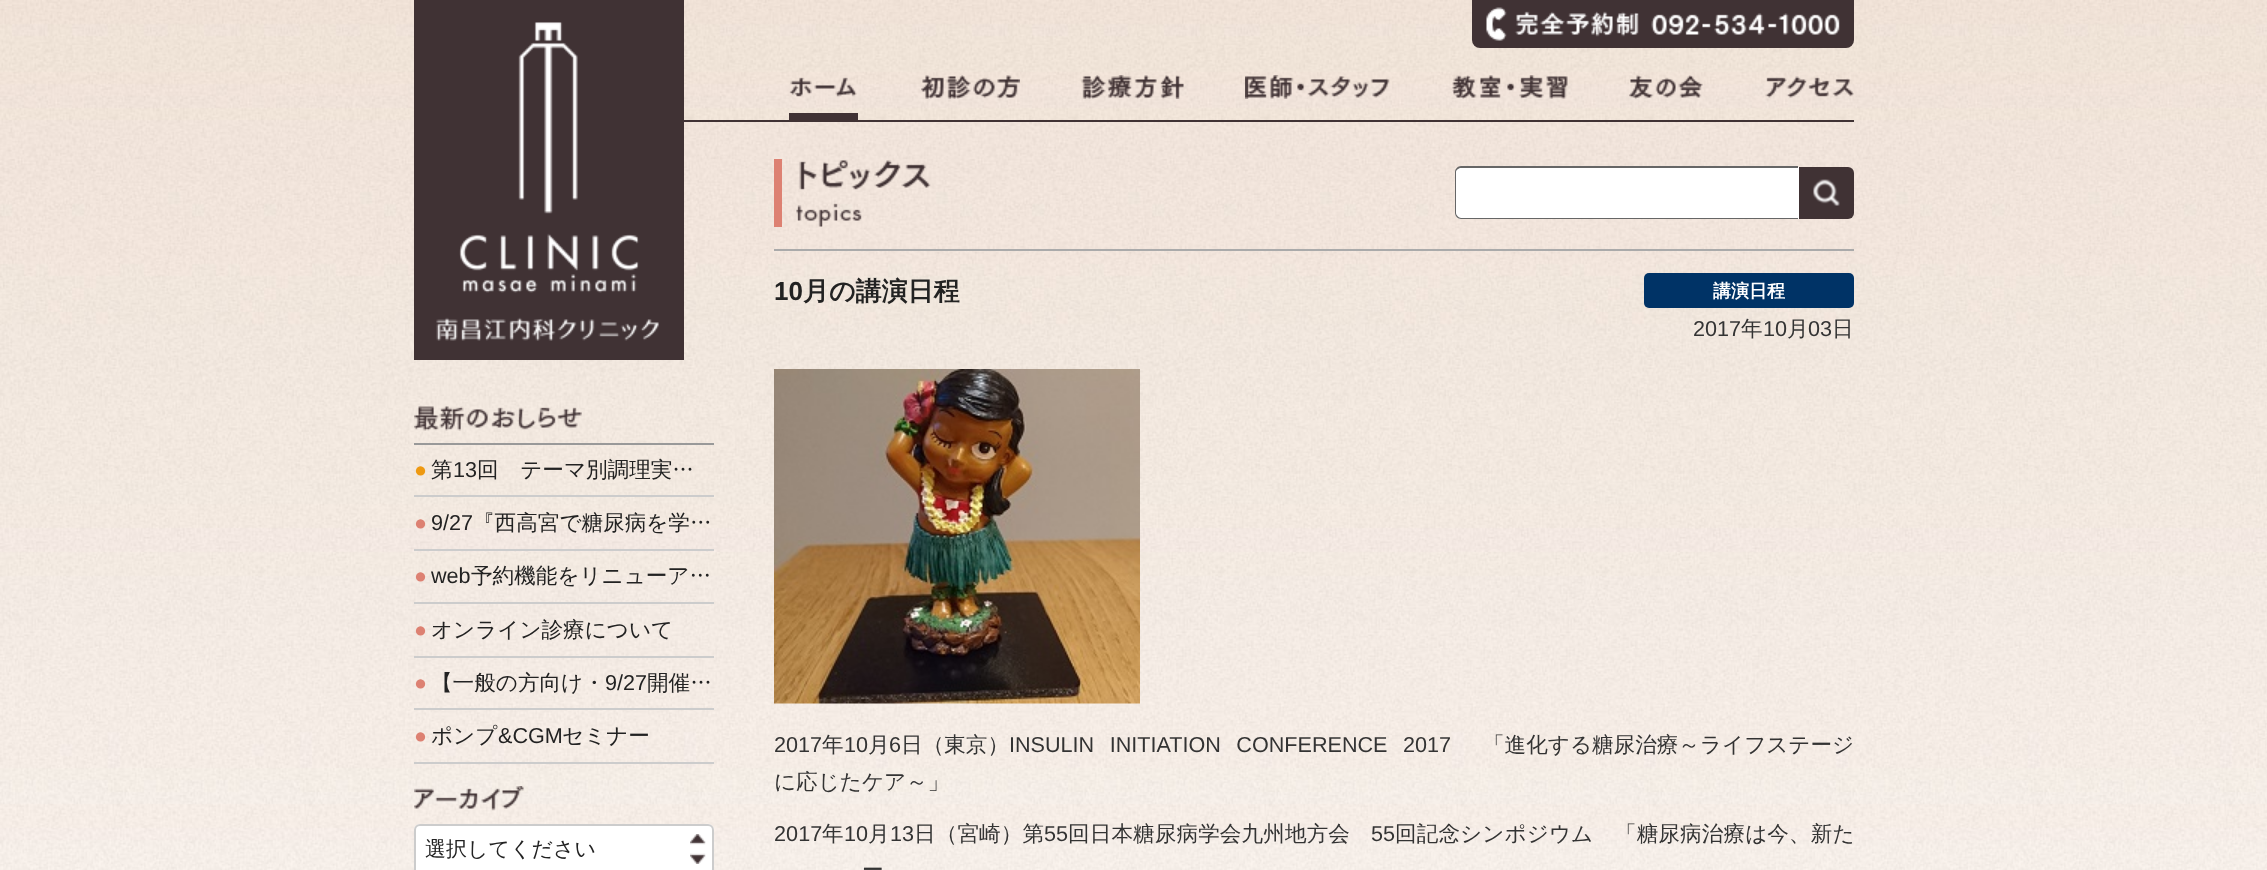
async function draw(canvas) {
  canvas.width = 2267;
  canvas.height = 870;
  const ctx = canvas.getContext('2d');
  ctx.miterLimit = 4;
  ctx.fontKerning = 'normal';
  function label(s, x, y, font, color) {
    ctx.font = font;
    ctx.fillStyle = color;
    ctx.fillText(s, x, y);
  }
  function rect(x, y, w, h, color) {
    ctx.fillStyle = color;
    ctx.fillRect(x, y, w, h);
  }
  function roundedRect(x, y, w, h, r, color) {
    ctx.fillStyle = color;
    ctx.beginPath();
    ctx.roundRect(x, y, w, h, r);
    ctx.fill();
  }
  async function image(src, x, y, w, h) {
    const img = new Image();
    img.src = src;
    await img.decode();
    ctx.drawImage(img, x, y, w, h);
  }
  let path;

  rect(0, 0, 2267, 870, '#fff');
  await image('assets/img1.png', 0, 0, 2267, 870);
  rect(414, 0, 270, 360, '#403234');
  await image('assets/img2.png', 436, 22, 223, 319);
  await image('assets/img3.png', 414, 406, 168, 25);
  rect(414, 443, 300, 2, '#999');
  rect(414, 495, 300, 2, '#ccc');
  ctx.letterSpacing = '4px';
  label('●', 414, 477, '21.6px Liberation Sans', '#e91');
  ctx.letterSpacing = '0px';
  label('第', 431, 477, '500 21.6px WenQuanYi Zen Hei', '#222');
  label('13', 453, 477, '21.6px Liberation Sans', '#222');
  label('回　テーマ別調理実…', 477, 477, '500 21.6px WenQuanYi Zen Hei', '#222');
  rect(414, 549, 300, 2, '#ccc');
  ctx.letterSpacing = '4px';
  label('●', 414, 530, '21.6px Liberation Sans', '#dd8172');
  ctx.letterSpacing = '0px';
  label('9/27', 431, 530, '21.6px Liberation Sans', '#222');
  label('『西高宮で糖尿病を学…', 473, 530, '500 21.6px WenQuanYi Zen Hei', '#222');
  rect(414, 602, 300, 2, '#ccc');
  ctx.letterSpacing = '4px';
  label('●', 414, 583, '21.6px Liberation Sans', '#dd8172');
  ctx.letterSpacing = '0px';
  label('web', 431, 583, '21.6px Liberation Sans', '#222');
  label('予約機能をリニューア…', 471, 583, '500 21.6px WenQuanYi Zen Hei', '#222');
  rect(414, 656, 300, 2, '#ccc');
  ctx.letterSpacing = '4px';
  label('●', 414, 637, '21.6px Liberation Sans', '#dd8172');
  ctx.letterSpacing = '0px';
  label('オンライン診療について', 431, 637, '500 21.6px WenQuanYi Zen Hei', '#222');
  rect(414, 708, 300, 2, '#ccc');
  ctx.letterSpacing = '4px';
  label('●', 414, 690, '21.6px Liberation Sans', '#dd8172');
  ctx.letterSpacing = '0px';
  label('【一般の方向け・', 431, 690, '500 21.6px WenQuanYi Zen Hei', '#222');
  label('9/27', 605, 690, '21.6px Liberation Sans', '#222');
  label('開催…', 647, 690, '500 21.6px WenQuanYi Zen Hei', '#222');
  rect(414, 762, 300, 2, '#ccc');
  ctx.letterSpacing = '4px';
  label('●', 414, 743, '21.6px Liberation Sans', '#dd8172');
  ctx.letterSpacing = '0px';
  label('ポンプ', 431, 743, '500 21.6px WenQuanYi Zen Hei', '#222');
  label('&CGM', 498, 743, '21.6px Liberation Sans', '#222');
  label('セミナー', 562, 743, '500 21.6px WenQuanYi Zen Hei', '#222');
  await image('assets/img4.png', 414, 786, 110, 25);
  roundedRect(414, 824, 300, 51, 6, '#fff');
  await image('assets/img5.png', 690, 834, 16, 30);
  ctx.beginPath();
  ctx.roundRect(415, 825, 298, 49, 5);
  ctx.strokeStyle = '#ccc';
  ctx.lineWidth = 2;
  ctx.stroke();
  label('選択してください', 425, 856, '500 21px WenQuanYi Zen Hei', '#222');
  rect(684, 120, 1170, 2, '#403234');
  ctx.beginPath();
  ctx.roundRect(1472, 0, 382, 48, [0, 0, 8, 8]);
  ctx.fill();
  await image('assets/img6.png', 1486, 7, 354, 34);
  await image('assets/img7.png', 789, 77, 68, 20);
  await image('assets/img8.png', 921, 75, 99, 24);
  await image('assets/img9.png', 1081, 75, 103, 24);
  await image('assets/img10.png', 1245, 75, 145, 24);
  await image('assets/img11.png', 1452, 75, 116, 24);
  await image('assets/img12.png', 1629, 75, 74, 24);
  await image('assets/img13.png', 1765, 76, 89, 22);
  rect(789, 113, 69, 7, '#403234');
  rect(774, 249, 1080, 2, '#aaa');
  await image('assets/img14.png', 796, 160, 135, 67);
  rect(774, 159, 8, 68, '#dd8172');
  ctx.fillStyle = '#fff';
  ctx.beginPath();
  ctx.roundRect(1455, 167, 344, 52, [6, 0, 0, 6]);
  ctx.fill();
  ctx.fillStyle = '#666';
  path = new Path2D('M1461 166H1798V219H1461C1458 219 1455 216 1455 213V172C1455 169 1458 166 1461 166ZM1461 168H1798V218H1461C1459 218 1456 215 1456 213V172C1456 170 1459 168 1461 168Z');
  ctx.fill(path, 'evenodd');
  ctx.fillStyle = '#403234';
  ctx.beginPath();
  ctx.roundRect(1799, 167, 55, 52, [0, 6, 6, 0]);
  ctx.fill();
  await image('assets/img15.png', 1813, 179, 27, 27);
  label('10', 774, 300, 'bold 26px Liberation Sans', '#222');
  label('月の講演日程', 803, 300, 'bold 26px WenQuanYi Zen Hei', '#222');
  roundedRect(1644, 273, 210, 35, 5, '#036');
  label('講演日程', 1713, 297, 'bold 18px WenQuanYi Zen Hei', '#fff');
  label('2017', 1693, 336, '21.6px Liberation Sans', '#333');
  label('年', 1741, 336, '500 21.6px WenQuanYi Zen Hei', '#333');
  label('10', 1763, 336, '21.6px Liberation Sans', '#333');
  label('月', 1787, 336, '500 21.6px WenQuanYi Zen Hei', '#333');
  label('03', 1808, 336, '21.6px Liberation Sans', '#333');
  label('日', 1832, 336, '500 21.6px WenQuanYi Zen Hei', '#333');
  await image('assets/img16.png', 774, 369, 366, 335);
  label('2017', 774, 752, '21.6px Liberation Sans', '#333');
  label('年', 822, 752, '500 21.6px WenQuanYi Zen Hei', '#333');
  label('10', 844, 752, '21.6px Liberation Sans', '#333');
  label('月', 868, 752, '500 21.6px WenQuanYi Zen Hei', '#333');
  label('6', 889, 752, '21.6px Liberation Sans', '#333');
  label('日（東京）', 901, 752, '500 21.6px WenQuanYi Zen Hei', '#333');
  ctx.wordSpacing = '1.75px';
  label('INSULIN  INITIATION  CONFERENCE  2017', 1009, 752, '21.6px Liberation Sans', '#333');
  ctx.wordSpacing = '0px';
  label('「進化する糖尿治療～ライフステージ', 1483, 752, '500 21.6px WenQuanYi Zen Hei', '#333');
  label('に応じたケア～」', 774, 789, '500 21.6px WenQuanYi Zen Hei', '#333');
  ctx.letterSpacing = '0.1px';
  label('2017', 774, 841, '21.6px Liberation Sans', '#333');
  label('年', 822, 841, '500 21.6px WenQuanYi Zen Hei', '#333');
  label('10', 844, 841, '21.6px Liberation Sans', '#333');
  label('月', 868, 841, '500 21.6px WenQuanYi Zen Hei', '#333');
  label('13', 890, 841, '21.6px Liberation Sans', '#333');
  label('日（宮崎）第', 914, 841, '500 21.6px WenQuanYi Zen Hei', '#333');
  label('55', 1044, 841, '21.6px Liberation Sans', '#333');
  label('回日本糖尿病学会九州地方会', 1068, 841, '500 21.6px WenQuanYi Zen Hei', '#333');
  label('55', 1371, 841, '21.6px Liberation Sans', '#333');
  label('回記念シンポジウム　「糖尿病治療は今、新た', 1395, 841, '500 21.6px WenQuanYi Zen Hei', '#333');
  ctx.letterSpacing = '0px';
  label('ー', 862, 877, '500 21.6px WenQuanYi Zen Hei', '#333');
}

draw(document.querySelector('canvas'));
